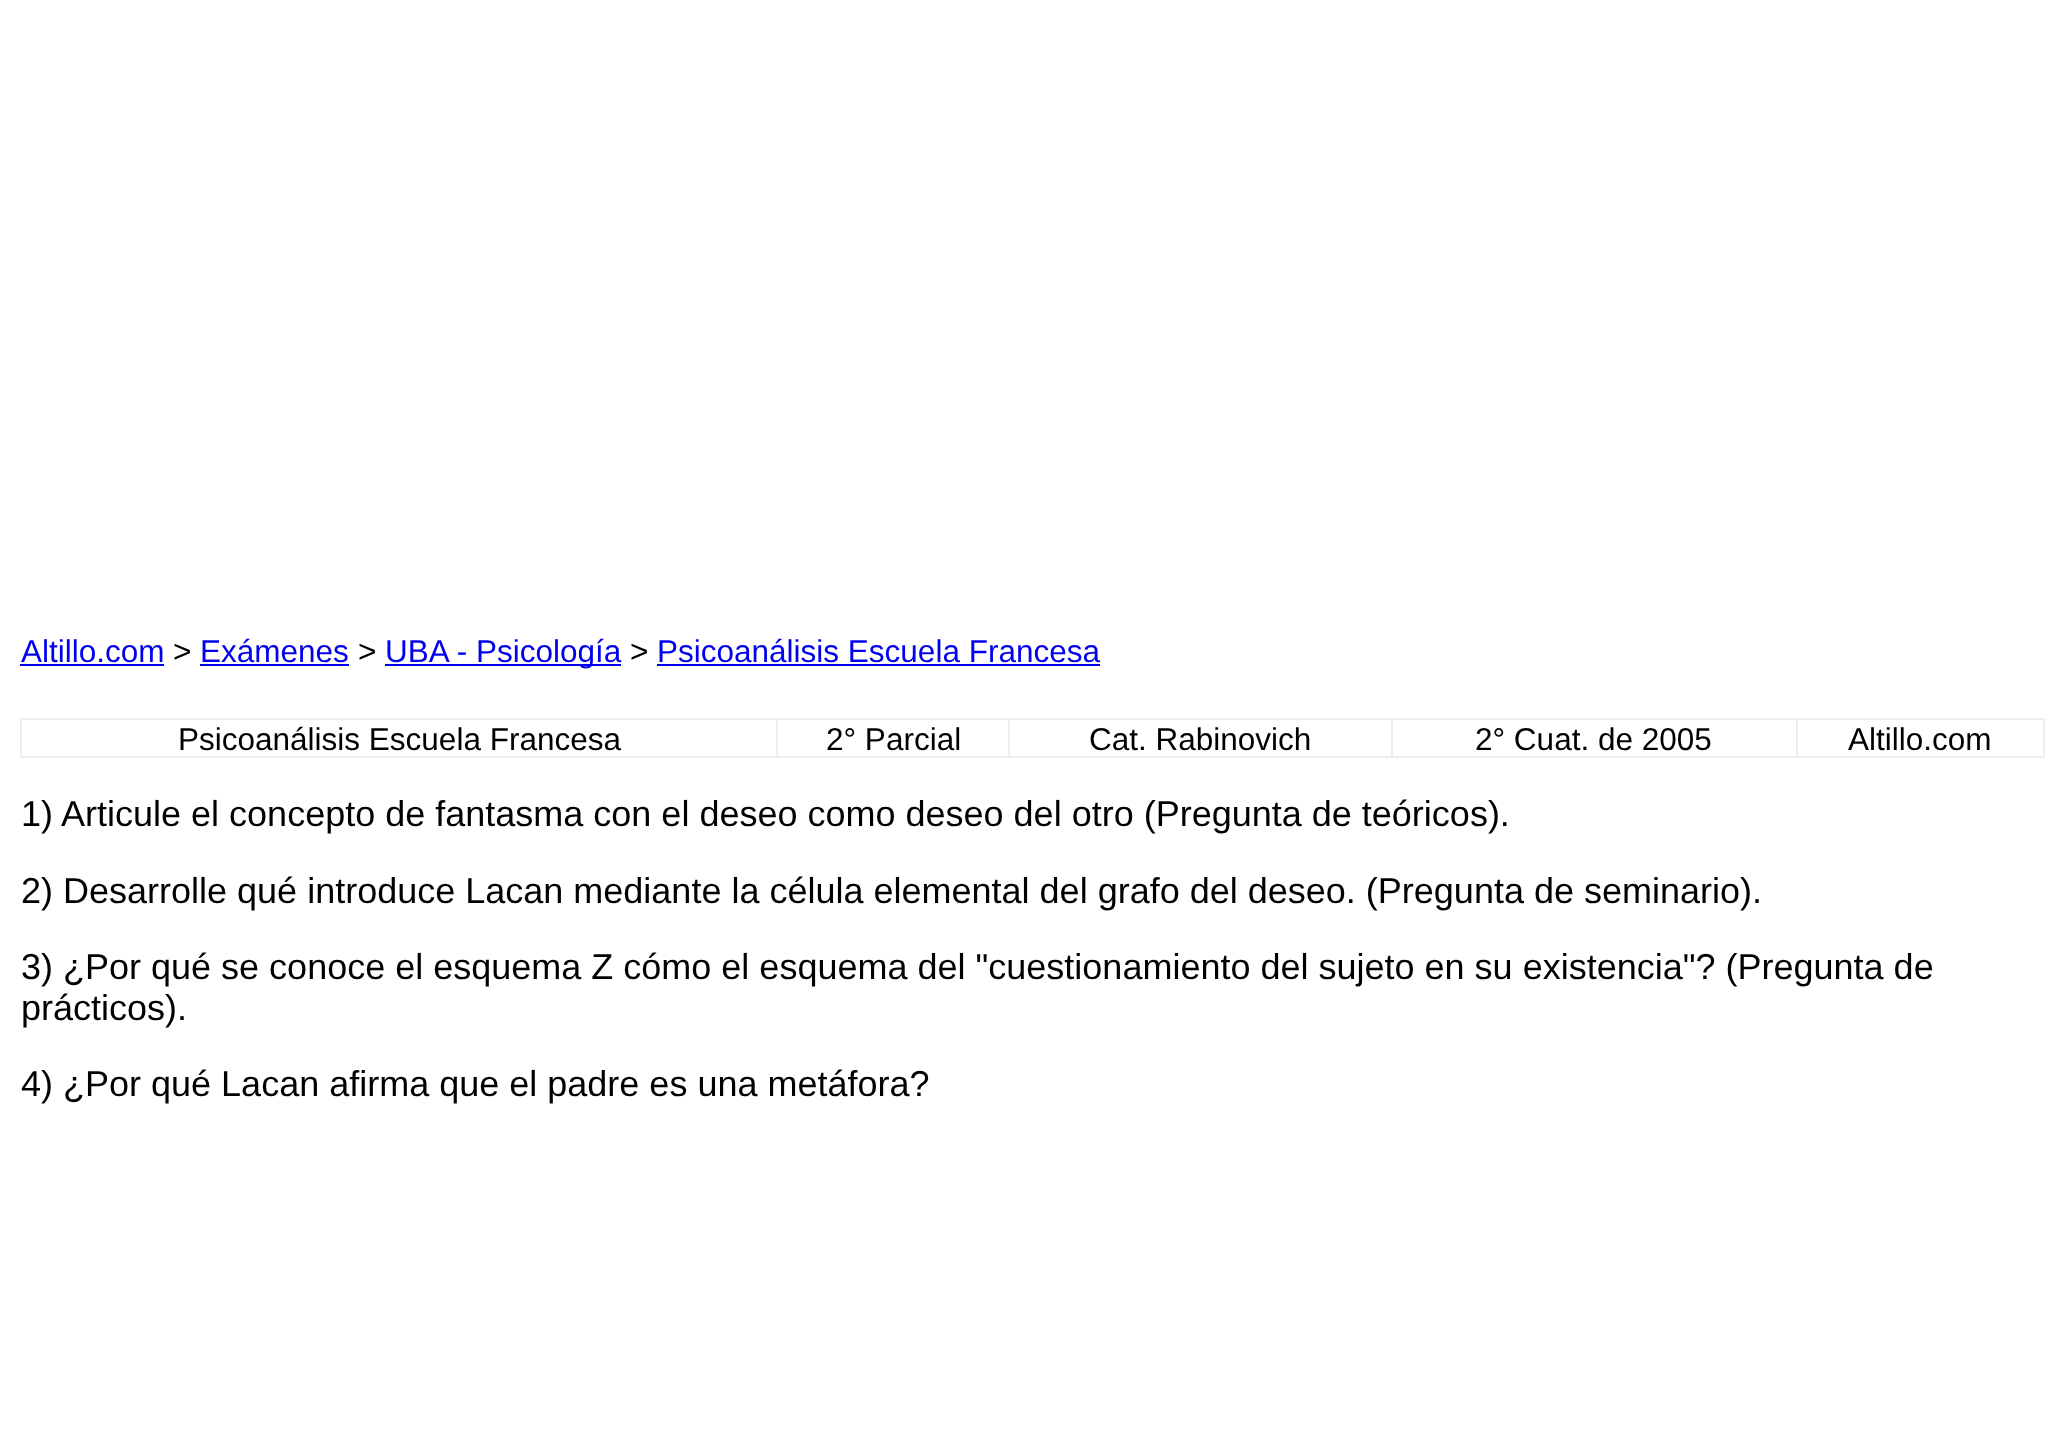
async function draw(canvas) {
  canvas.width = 2064;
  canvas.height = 1442;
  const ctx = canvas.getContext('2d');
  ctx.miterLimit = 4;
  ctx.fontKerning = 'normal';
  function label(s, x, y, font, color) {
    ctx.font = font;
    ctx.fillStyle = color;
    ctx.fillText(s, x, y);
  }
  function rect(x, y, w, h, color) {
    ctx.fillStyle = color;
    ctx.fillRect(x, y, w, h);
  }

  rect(0, 0, 2064, 1442, '#fff');
  label('Altillo.com', 21, 662, '31.5px Liberation Sans', '#00e');
  rect(20, 664, 144, 2, '#00e');
  label('>', 173, 662, '31.5px Liberation Sans', '#000');
  label('Exámenes', 200, 662, '31.5px Liberation Sans', '#00e');
  rect(200, 664, 149, 2, '#00e');
  label('>', 358, 662, '31.5px Liberation Sans', '#000');
  rect(385, 664, 236, 2, '#00e');
  label('UBA - Psicología', 385, 662, '31.5px Liberation Sans', '#00e');
  label('>', 630, 662, '31.5px Liberation Sans', '#000');
  label('Psicoanálisis Escuela Francesa', 657, 662, '31.5px Liberation Sans', '#00e');
  rect(657, 664, 443, 2, '#00e');
  rect(1796, 718, 249, 2, '#eee');
  rect(2043, 718, 2, 40, '#eee');
  rect(1796, 756, 249, 2, '#eee');
  rect(1796, 718, 2, 40, '#eee');
  rect(1391, 718, 407, 2, '#eee');
  rect(1391, 756, 407, 2, '#eee');
  rect(1391, 718, 2, 40, '#eee');
  rect(1008, 718, 385, 2, '#eee');
  rect(1008, 756, 385, 2, '#eee');
  rect(1008, 718, 2, 40, '#eee');
  rect(776, 718, 234, 2, '#eee');
  rect(776, 756, 234, 2, '#eee');
  rect(776, 718, 2, 40, '#eee');
  rect(20, 718, 759, 2, '#eee');
  rect(20, 756, 759, 2, '#eee');
  rect(20, 718, 2, 40, '#eee');
  label('Psicoanálisis Escuela Francesa', 178, 750, '31.5px Liberation Sans', '#000');
  label('2° Parcial', 826, 750, '31.5px Liberation Sans', '#000');
  label('Cat. Rabinovich', 1089, 750, '31.5px Liberation Sans', '#000');
  label('2° Cuat. de 2005', 1475, 750, '31.5px Liberation Sans', '#000');
  label('Altillo.com', 1848, 750, '31.5px Liberation Sans', '#000');
  label('1) Articule el concepto de fantasma con el deseo como deseo del otro (Pregunta de teóricos).', 21, 826, '36px Liberation Sans', '#000');
  label('2) Desarrolle qué introduce Lacan mediante la célula elemental del grafo del deseo. (Pregunta de seminario).', 21, 903, '36px Liberation Sans', '#000');
  label('3) ¿Por qué se conoce el esquema Z cómo el esquema del "cuestionamiento del sujeto en su existencia"? (Pregunta de', 21, 979, '36px Liberation Sans', '#000');
  label('prácticos).', 21, 1020, '36px Liberation Sans', '#000');
  label('4) ¿Por qué Lacan afirma que el padre es una metáfora?', 21, 1096, '36px Liberation Sans', '#000');
}

draw(document.querySelector('canvas'));
